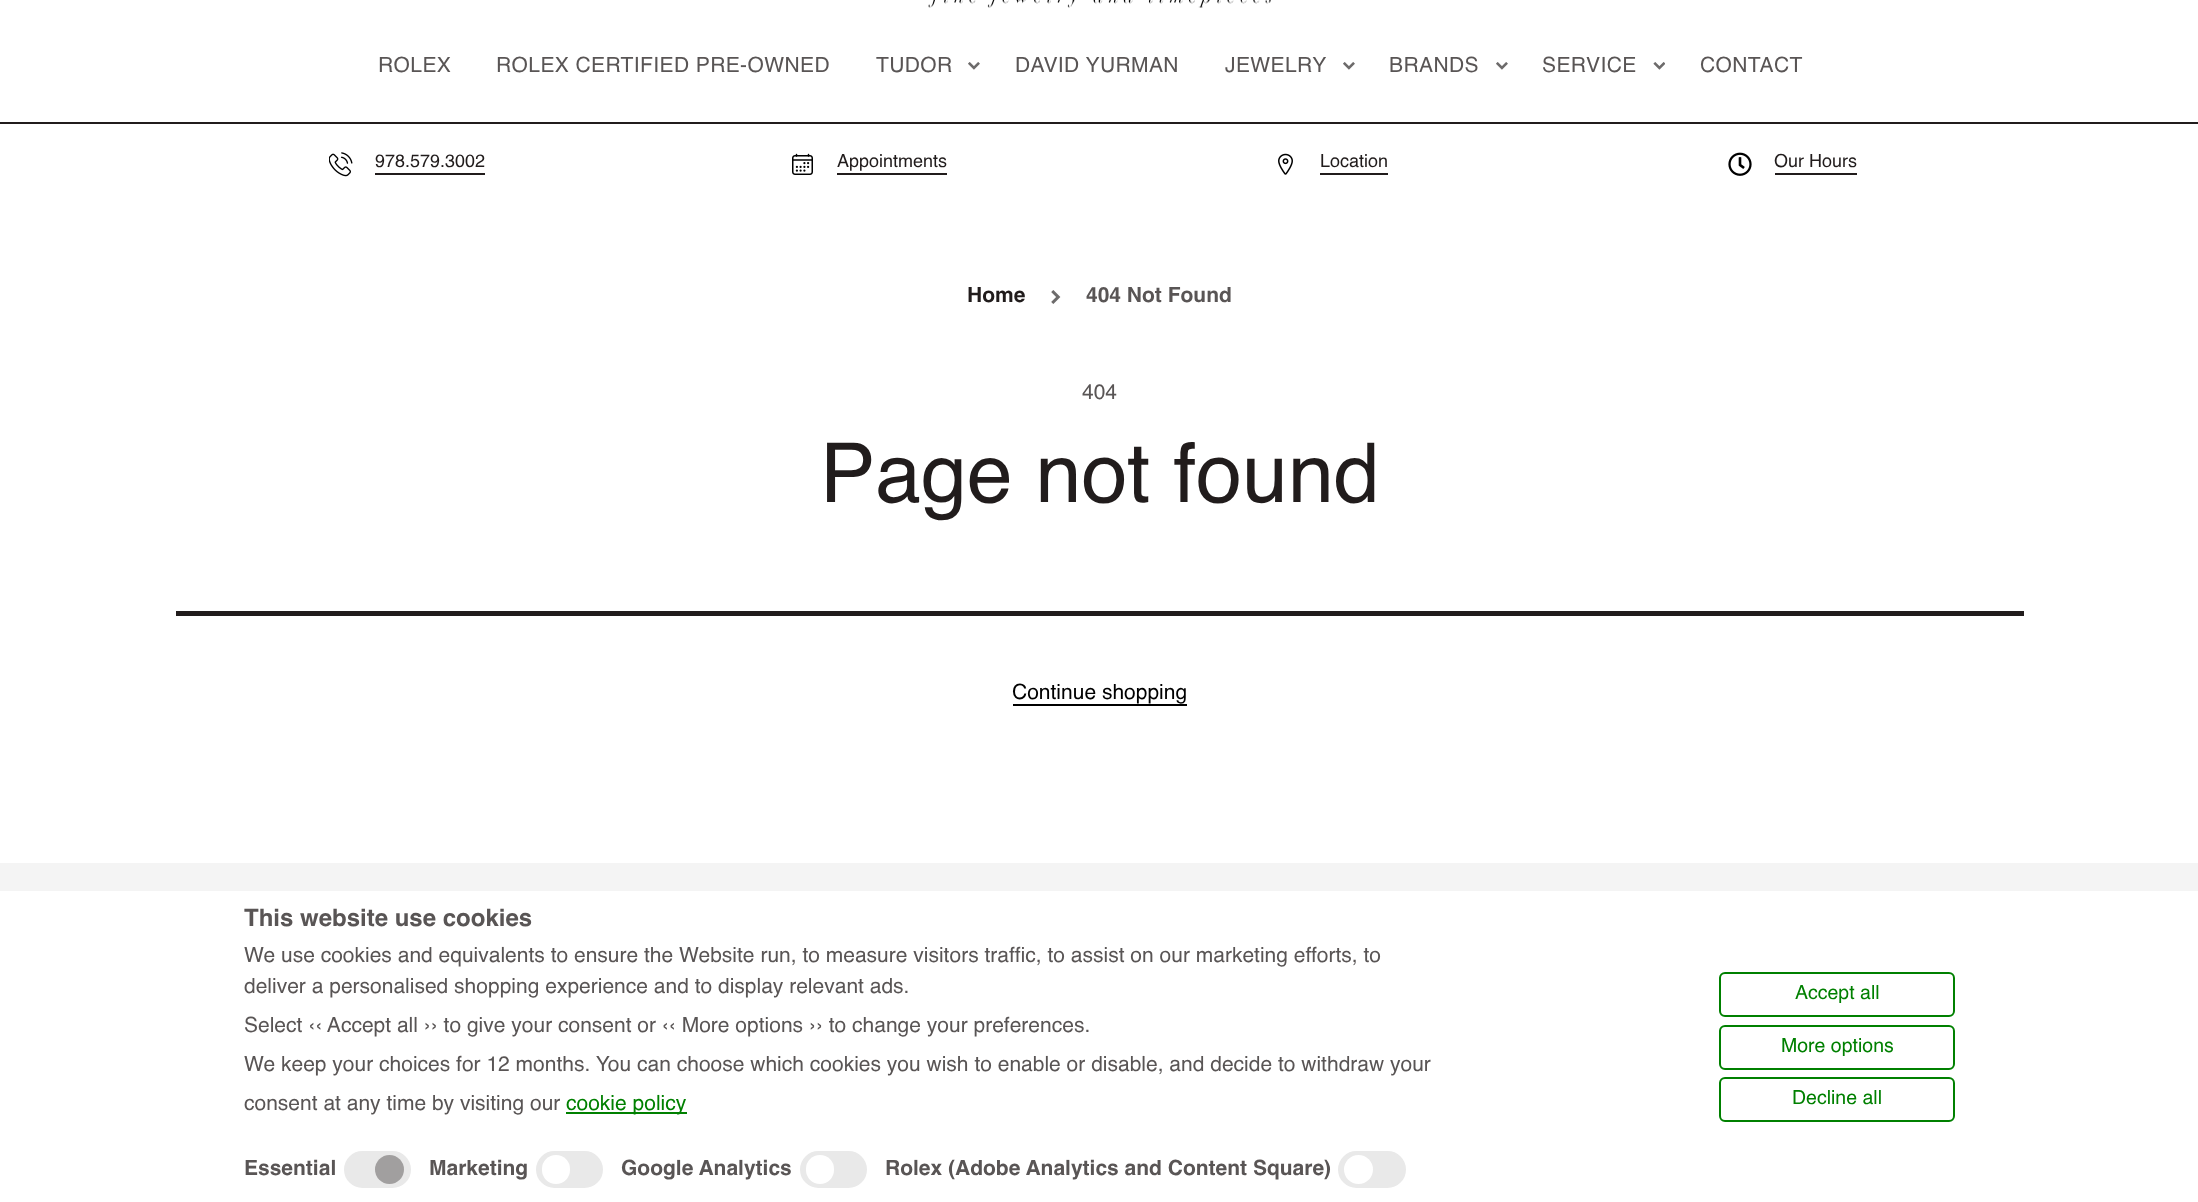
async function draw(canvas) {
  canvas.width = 2198;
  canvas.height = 1202;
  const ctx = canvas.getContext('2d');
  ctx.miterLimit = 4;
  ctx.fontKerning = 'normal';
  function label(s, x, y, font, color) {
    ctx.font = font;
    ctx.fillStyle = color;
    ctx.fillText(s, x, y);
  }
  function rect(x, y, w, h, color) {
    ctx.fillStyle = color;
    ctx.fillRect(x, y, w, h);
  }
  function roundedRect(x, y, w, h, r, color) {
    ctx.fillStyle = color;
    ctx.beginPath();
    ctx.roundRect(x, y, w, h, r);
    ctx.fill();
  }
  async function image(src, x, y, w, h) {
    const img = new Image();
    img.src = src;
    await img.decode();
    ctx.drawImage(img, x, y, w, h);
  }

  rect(0, 0, 2198, 1202, '#fff');
  await image('assets/img1.png', 928, 0, 343, 8);
  rect(0, 122, 2198, 2, '#211c1c');
  ctx.letterSpacing = '0.4px';
  label('ROLEX', 378, 72, '21px Helvetica', '#595555');
  label('ROLEX CERTIFIED PRE-OWNED', 496, 72, '21px Helvetica', '#595555');
  label('TUDOR', 876, 72, '21px Helvetica', '#595555');
  await image('assets/img2.png', 968, 62, 12, 8);
  label('DAVID YURMAN', 1015, 72, '21px Helvetica', '#595555');
  label('JEWELRY', 1225, 72, '21px Helvetica', '#595555');
  await image('assets/img2.png', 1343, 62, 12, 8);
  label('BRANDS', 1389, 72, '21px Helvetica', '#595555');
  await image('assets/img2.png', 1496, 62, 12, 8);
  label('SERVICE', 1542, 72, '21px Helvetica', '#595555');
  await image('assets/img3.png', 1653, 62, 12, 8);
  label('CONTACT', 1700, 72, '21px Helvetica', '#595555');
  await image('assets/img4.png', 329, 152, 24, 25);
  ctx.letterSpacing = '0px';
  label('978.579.3002', 375, 167, '18px Helvetica', '#211c1c');
  rect(375, 173, 110, 2, '#211c1c');
  await image('assets/img5.png', 792, 153, 21, 22);
  label('Appointments', 837, 167, '18px Helvetica', '#211c1c');
  rect(837, 173, 110, 2, '#211c1c');
  await image('assets/img6.png', 1278, 153, 15, 22);
  label('Location', 1320, 167, '18px Helvetica', '#211c1c');
  rect(1320, 173, 68, 2, '#211c1c');
  await image('assets/img7.png', 1728, 152, 24, 24);
  label('Our Hours', 1774, 167, '18px Helvetica', '#211c1c');
  rect(1775, 173, 82, 2, '#211c1c');
  label('Home', 967, 302, 'bold 21px Helvetica', '#211c1c');
  await image('assets/img8.png', 1051, 290, 10, 14);
  label('404 Not Found', 1086, 302, 'bold 21px Helvetica', '#595555');
  rect(176, 611, 1848, 5, '#211c1c');
  label('404', 1082, 399, '21px Helvetica', '#595555');
  label('Page not found', 820, 502, '82.5px Helvetica', '#211c1c');
  label('Continue shopping', 1012, 699, '21px Helvetica', '#000');
  rect(1013, 704, 174, 2, '#000');
  rect(0, 863, 2198, 28, '#f4f4f4');
  label('This website use cookies', 244, 926, 'bold 24px Helvetica', '#595555');
  label('We use cookies and equivalents to ensure the Website run, to measure visitors traffic, to assist on our marketing efforts, to', 244, 962, '21px Helvetica', '#595555');
  label('deliver a personalised shopping experience and to display relevant ads.', 244, 993, '21px Helvetica', '#595555');
  label('Select ‹‹ Accept all ›› to give your consent or ‹‹ More options ›› to change your preferences.', 244, 1032, '21px Helvetica', '#595555');
  label('We keep your choices for 12 months. You can choose which cookies you wish to enable or disable, and decide to withdraw your', 244, 1071, '21px Helvetica', '#595555');
  label('consent at any time by visiting our', 244, 1110, '21px Helvetica', '#595555');
  rect(566, 1112, 121, 2, '#008000');
  label('cookie policy', 566, 1110, '21px Helvetica', '#008000');
  label('Essential', 244, 1175, 'bold 21px Helvetica', '#595555');
  ctx.fillStyle = '#e9e9e9';
  ctx.beginPath();
  ctx.roundRect(345, 1152, 65, 35, 17.5);
  ctx.fill();
  ctx.strokeStyle = '#e9e9e9';
  ctx.lineWidth = 2;
  ctx.stroke();
  ctx.fillStyle = '#a19f9f';
  ctx.beginPath();
  ctx.arc(389.5, 1169.5, 14.5, 0, 2 * Math.PI);
  ctx.fill();
  label('Marketing', 429, 1175, 'bold 21px Helvetica', '#595555');
  ctx.fillStyle = '#e9e9e9';
  ctx.beginPath();
  ctx.roundRect(537, 1152, 65, 35, 17.5);
  ctx.fill();
  ctx.stroke();
  roundedRect(542, 1155, 28, 29, 14, '#fff');
  label('Google Analytics', 621, 1175, 'bold 21px Helvetica', '#595555');
  ctx.fillStyle = '#e9e9e9';
  ctx.beginPath();
  ctx.roundRect(801, 1152, 65, 35, 17.5);
  ctx.fill();
  ctx.stroke();
  roundedRect(806, 1155, 28, 29, 14, '#fff');
  label('Rolex (Adobe Analytics and Content Square)', 885, 1175, 'bold 21px Helvetica', '#595555');
  ctx.fillStyle = '#e9e9e9';
  ctx.beginPath();
  ctx.roundRect(1339, 1152, 66, 35, 17.5);
  ctx.fill();
  ctx.stroke();
  ctx.fillStyle = '#fff';
  ctx.beginPath();
  ctx.arc(1358.5, 1169.5, 14.5, 0, 2 * Math.PI);
  ctx.fill();
  ctx.beginPath();
  ctx.roundRect(1720, 973, 234, 43, 5);
  ctx.strokeStyle = '#008000';
  ctx.stroke();
  label('Accept all', 1795, 999, '19.5px Helvetica', '#008000');
  ctx.beginPath();
  ctx.roundRect(1720, 1026, 234, 43, 5);
  ctx.stroke();
  label('More options', 1781, 1052, '19.5px Helvetica', '#008000');
  ctx.beginPath();
  ctx.roundRect(1720, 1078, 234, 43, 5);
  ctx.stroke();
  label('Decline all', 1792, 1104, '19.5px Helvetica', '#008000');
}

draw(document.querySelector('canvas'));
